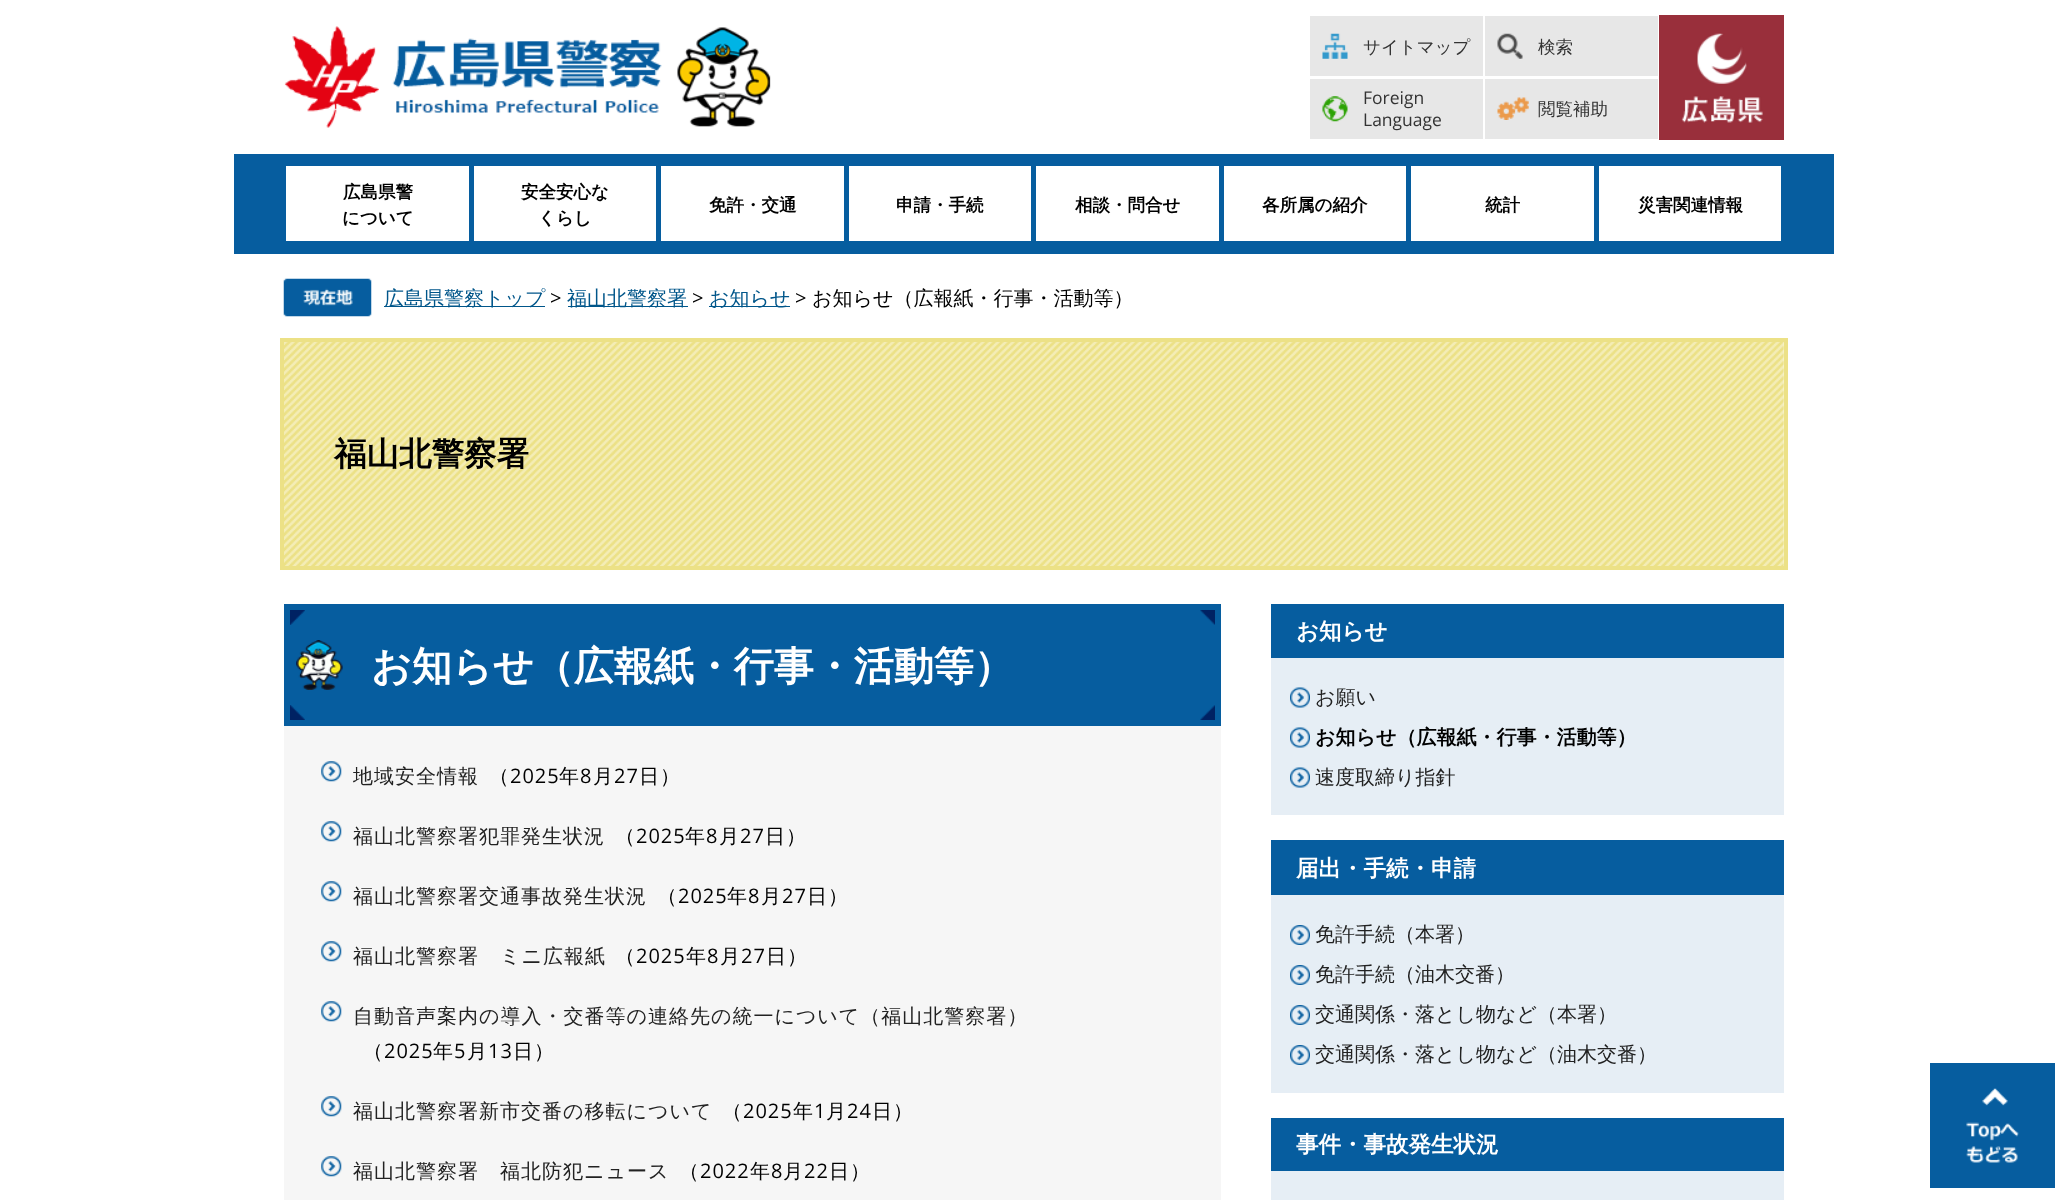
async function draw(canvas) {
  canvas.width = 2067;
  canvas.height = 1200;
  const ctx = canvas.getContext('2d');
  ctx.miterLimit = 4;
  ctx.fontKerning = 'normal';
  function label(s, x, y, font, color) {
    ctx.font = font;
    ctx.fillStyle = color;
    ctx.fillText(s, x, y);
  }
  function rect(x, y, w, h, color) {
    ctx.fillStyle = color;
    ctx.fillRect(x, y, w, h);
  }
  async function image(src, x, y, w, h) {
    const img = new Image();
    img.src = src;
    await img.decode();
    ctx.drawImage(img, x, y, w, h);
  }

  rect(0, 0, 2067, 1200, '#fff');
  await image('assets/img1.png', 284, 26, 487, 102);
  rect(1310, 16, 173, 60, '#e7e7e7');
  await image('assets/img2.png', 1322, 33, 26, 26);
  label('サイトマップ', 1363, 53, '500 17.5px WenQuanYi Zen Hei', '#333');
  rect(1485, 16, 173, 60, '#e7e7e7');
  await image('assets/img3.png', 1497, 33, 26, 26);
  label('検索', 1538, 53, '500 17.5px WenQuanYi Zen Hei', '#333');
  rect(1310, 79, 173, 60, '#e7e7e7');
  await image('assets/img4.png', 1322, 96, 26, 26);
  label('Foreign', 1363, 104, '17.5px Open Sans', '#333');
  label('Language', 1363, 126, '17.5px Open Sans', '#333');
  rect(1485, 79, 173, 60, '#e7e7e7');
  await image('assets/img5.png', 1497, 97, 32, 23);
  label('閲覧補助', 1538, 115, '500 17.5px WenQuanYi Zen Hei', '#333');
  rect(1659, 15, 125, 125, '#992f3b');
  await image('assets/img6.png', 1681, 33, 82, 90);
  rect(234, 154, 1600, 100, '#065d9f');
  rect(286, 166, 183, 75, '#fff');
  label('広島県警', 343, 198, 'bold 17.5px WenQuanYi Zen Hei', '#000');
  label('について', 342, 224, 'bold 17.5px WenQuanYi Zen Hei', '#000');
  rect(474, 166, 182, 75, '#fff');
  label('安全安心な', 521, 198, 'bold 17.5px WenQuanYi Zen Hei', '#000');
  label('くらし', 538, 224, 'bold 17.5px WenQuanYi Zen Hei', '#000');
  rect(661, 166, 183, 75, '#fff');
  label('免許・交通', 709, 211, 'bold 17.5px WenQuanYi Zen Hei', '#000');
  rect(849, 166, 182, 75, '#fff');
  label('申請・手続', 896, 211, 'bold 17.5px WenQuanYi Zen Hei', '#000');
  rect(1036, 166, 183, 75, '#fff');
  label('相談・問合せ', 1075, 211, 'bold 17.5px WenQuanYi Zen Hei', '#000');
  rect(1224, 166, 182, 75, '#fff');
  label('各所属の紹介', 1262, 211, 'bold 17.5px WenQuanYi Zen Hei', '#000');
  rect(1411, 166, 183, 75, '#fff');
  label('統計', 1485, 211, 'bold 17.5px WenQuanYi Zen Hei', '#000');
  rect(1599, 166, 182, 75, '#fff');
  label('災害関連情報', 1638, 211, 'bold 17.5px WenQuanYi Zen Hei', '#000');
  await image('assets/img7.png', 283, 278, 89, 39);
  rect(384, 306, 161, 1, '#00568a');
  label('広島県警察トップ', 384, 305, '500 20px WenQuanYi Zen Hei', '#00568a');
  label('>', 550, 305, '20px Open Sans', '#000');
  rect(568, 306, 120, 1, '#00568a');
  label('福山北警察署', 567, 305, '500 20px WenQuanYi Zen Hei', '#00568a');
  label('>', 692, 305, '20px Open Sans', '#000');
  rect(709, 306, 81, 1, '#00568a');
  label('お知らせ', 709, 305, '500 20px WenQuanYi Zen Hei', '#00568a');
  label('>', 795, 305, '20px Open Sans', '#000');
  label('お知らせ（広報紙・行事・活動等）', 812, 305, '500 20px WenQuanYi Zen Hei', '#000');
  await image('assets/img8.png', 284, 342, 1500, 224);
  ctx.strokeStyle = '#ece186';
  ctx.lineWidth = 4;
  ctx.strokeRect(282, 340, 1504, 228);
  label('福山北警察署', 334, 465, 'bold 32.5px WenQuanYi Zen Hei', '#000');
  rect(284, 604, 937, 122, '#065d9f');
  await image('assets/img9.png', 290, 610, 925, 110);
  label('お知らせ（広報紙・行事・活動等）', 371, 680, 'bold 40px WenQuanYi Zen Hei', '#fff');
  rect(284, 726, 937, 474, '#f6f6f6');
  await image('assets/img10.png', 321, 761, 21, 21);
  ctx.letterSpacing = '1px';
  label('地域安全情報', 353, 783, '500 20px WenQuanYi Zen Hei', '#222');
  label('（', 489, 783, '500 20px WenQuanYi Zen Hei', '#000');
  label('2025', 510, 783, '20px Open Sans', '#000');
  label('年', 559, 783, '500 20px WenQuanYi Zen Hei', '#000');
  label('8', 580, 783, '20px Open Sans', '#000');
  label('月', 593, 783, '500 20px WenQuanYi Zen Hei', '#000');
  label('27', 614, 783, '20px Open Sans', '#000');
  label('日）', 639, 783, '500 20px WenQuanYi Zen Hei', '#000');
  await image('assets/img10.png', 321, 821, 21, 21);
  label('福山北警察署犯罪発生状況', 353, 843, '500 20px WenQuanYi Zen Hei', '#222');
  label('（', 615, 843, '500 20px WenQuanYi Zen Hei', '#000');
  label('2025', 636, 843, '20px Open Sans', '#000');
  label('年', 685, 843, '500 20px WenQuanYi Zen Hei', '#000');
  label('8', 706, 843, '20px Open Sans', '#000');
  label('月', 719, 843, '500 20px WenQuanYi Zen Hei', '#000');
  label('27', 740, 843, '20px Open Sans', '#000');
  label('日）', 765, 843, '500 20px WenQuanYi Zen Hei', '#000');
  await image('assets/img10.png', 321, 881, 21, 21);
  label('福山北警察署交通事故発生状況', 353, 903, '500 20px WenQuanYi Zen Hei', '#222');
  label('（', 657, 903, '500 20px WenQuanYi Zen Hei', '#000');
  label('2025', 678, 903, '20px Open Sans', '#000');
  label('年', 727, 903, '500 20px WenQuanYi Zen Hei', '#000');
  label('8', 748, 903, '20px Open Sans', '#000');
  label('月', 761, 903, '500 20px WenQuanYi Zen Hei', '#000');
  label('27', 782, 903, '20px Open Sans', '#000');
  label('日）', 807, 903, '500 20px WenQuanYi Zen Hei', '#000');
  await image('assets/img10.png', 321, 941, 21, 21);
  label('福山北警察署　ミニ広報紙', 353, 963, '500 20px WenQuanYi Zen Hei', '#222');
  label('（', 615, 963, '500 20px WenQuanYi Zen Hei', '#000');
  label('2025', 636, 963, '20px Open Sans', '#000');
  label('年', 686, 963, '500 20px WenQuanYi Zen Hei', '#000');
  label('8', 707, 963, '20px Open Sans', '#000');
  label('月', 720, 963, '500 20px WenQuanYi Zen Hei', '#000');
  label('27', 741, 963, '20px Open Sans', '#000');
  label('日）', 766, 963, '500 20px WenQuanYi Zen Hei', '#000');
  await image('assets/img10.png', 321, 1001, 21, 21);
  label('自動音声案内の導入・交番等の連絡先の統一について（福山北警察署）', 353, 1023, '500 20px WenQuanYi Zen Hei', '#222');
  label('（', 363, 1058, '500 20px WenQuanYi Zen Hei', '#000');
  label('2025', 384, 1058, '20px Open Sans', '#000');
  label('年', 433, 1058, '500 20px WenQuanYi Zen Hei', '#000');
  label('5', 454, 1058, '20px Open Sans', '#000');
  label('月', 467, 1058, '500 20px WenQuanYi Zen Hei', '#000');
  label('13', 488, 1058, '20px Open Sans', '#000');
  label('日）', 513, 1058, '500 20px WenQuanYi Zen Hei', '#000');
  await image('assets/img10.png', 321, 1096, 21, 21);
  label('福山北警察署新市交番の移転について', 353, 1118, '500 20px WenQuanYi Zen Hei', '#222');
  label('（', 722, 1118, '500 20px WenQuanYi Zen Hei', '#000');
  label('2025', 743, 1118, '20px Open Sans', '#000');
  label('年', 793, 1118, '500 20px WenQuanYi Zen Hei', '#000');
  label('1', 814, 1118, '20px Open Sans', '#000');
  label('月', 826, 1118, '500 20px WenQuanYi Zen Hei', '#000');
  label('24', 847, 1118, '20px Open Sans', '#000');
  label('日）', 872, 1118, '500 20px WenQuanYi Zen Hei', '#000');
  await image('assets/img10.png', 321, 1156, 21, 21);
  label('福山北警察署　福北防犯ニュース', 353, 1178, '500 20px WenQuanYi Zen Hei', '#222');
  label('（', 679, 1178, '500 20px WenQuanYi Zen Hei', '#000');
  label('2022', 700, 1178, '20px Open Sans', '#000');
  label('年', 750, 1178, '500 20px WenQuanYi Zen Hei', '#000');
  label('8', 771, 1178, '20px Open Sans', '#000');
  label('月', 783, 1178, '500 20px WenQuanYi Zen Hei', '#000');
  label('22', 804, 1178, '20px Open Sans', '#000');
  label('日）', 829, 1178, '500 20px WenQuanYi Zen Hei', '#000');
  rect(1271, 658, 513, 157, '#e6eef5');
  rect(1271, 604, 513, 54, '#065d9f');
  ctx.letterSpacing = '0px';
  label('お知らせ', 1296, 639, 'bold 22.5px WenQuanYi Zen Hei', '#fff');
  await image('assets/img11.png', 1290, 687, 20, 21);
  label('お願い', 1315, 704, '500 20px WenQuanYi Zen Hei', '#222');
  await image('assets/img11.png', 1290, 727, 20, 21);
  label('お知らせ（広報紙・行事・活動等）', 1315, 744, 'bold 20px WenQuanYi Zen Hei', '#000');
  await image('assets/img11.png', 1290, 767, 20, 21);
  label('速度取締り指針', 1315, 784, '500 20px WenQuanYi Zen Hei', '#222');
  rect(1271, 895, 513, 198, '#e6eef5');
  rect(1271, 840, 513, 55, '#065d9f');
  label('届出・手続・申請', 1296, 876, 'bold 22.5px WenQuanYi Zen Hei', '#fff');
  await image('assets/img12.png', 1290, 925, 20, 20);
  label('免許手続（本署）', 1315, 941, '500 20px WenQuanYi Zen Hei', '#222');
  await image('assets/img12.png', 1290, 965, 20, 20);
  label('免許手続（油木交番）', 1315, 981, '500 20px WenQuanYi Zen Hei', '#222');
  await image('assets/img12.png', 1290, 1005, 20, 20);
  label('交通関係・落とし物など（本署）', 1315, 1021, '500 20px WenQuanYi Zen Hei', '#222');
  await image('assets/img12.png', 1290, 1045, 20, 20);
  label('交通関係・落とし物など（油木交番）', 1315, 1061, '500 20px WenQuanYi Zen Hei', '#222');
  rect(1271, 1171, 513, 29, '#e6eef5');
  rect(1271, 1118, 513, 53, '#065d9f');
  label('事件・事故発生状況', 1296, 1152, 'bold 22.5px WenQuanYi Zen Hei', '#fff');
  rect(1930, 1063, 125, 125, '#065d9f');
  await image('assets/img13.png', 1966, 1088, 53, 75);
}

draw(document.querySelector('canvas'));
